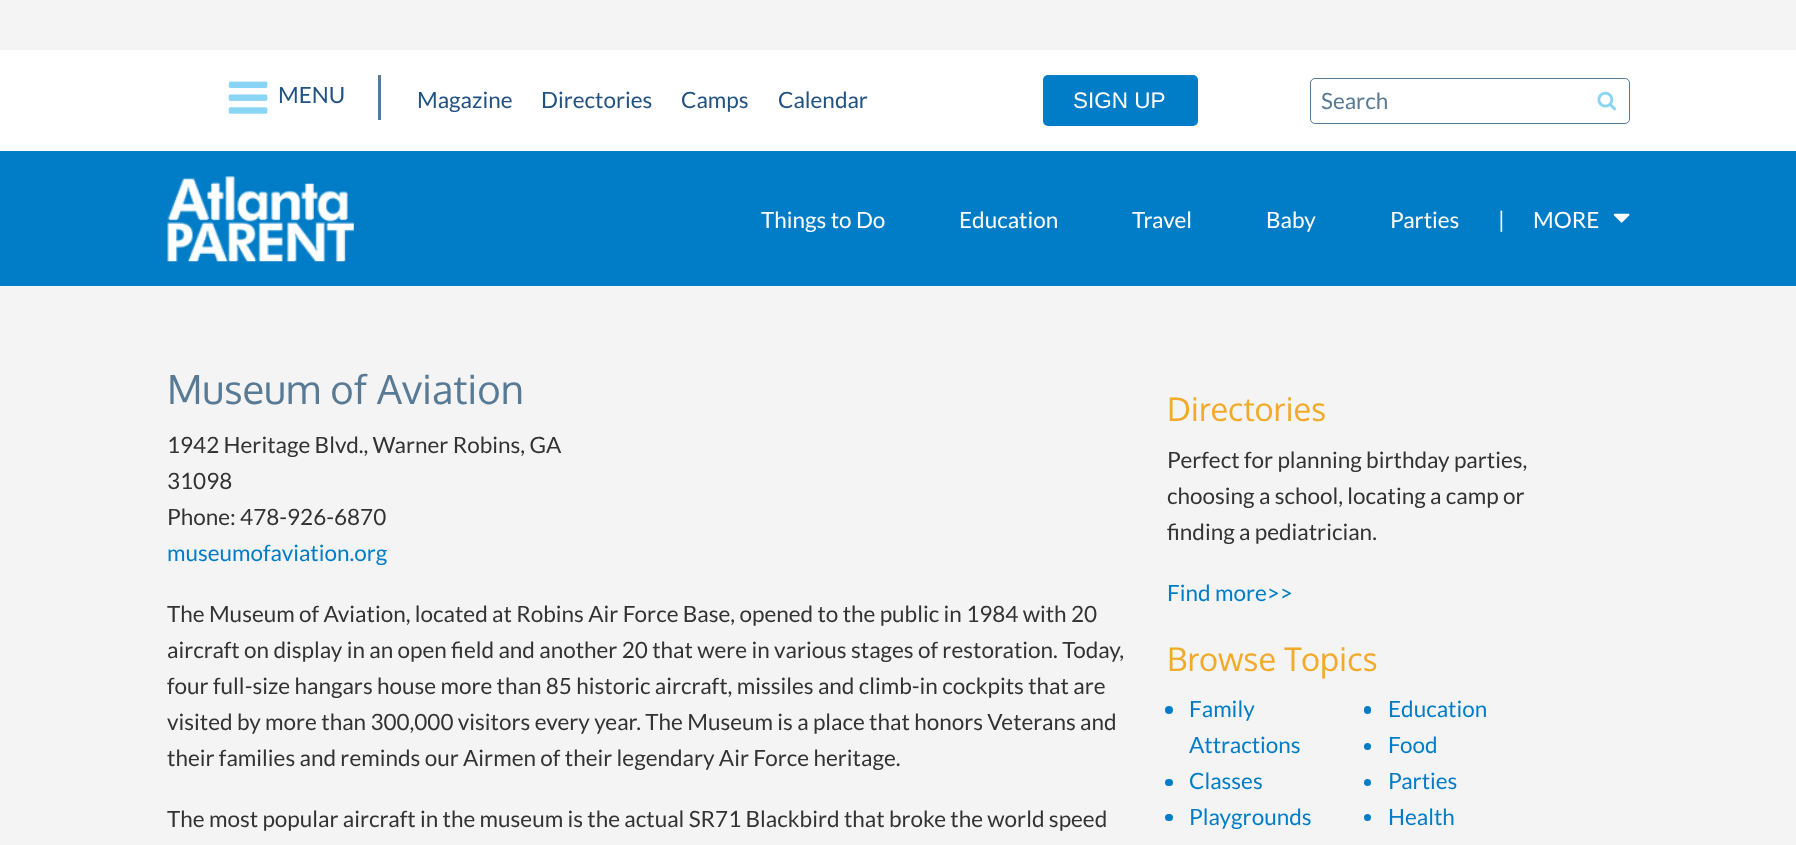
async function draw(canvas) {
  canvas.width = 1796;
  canvas.height = 845;
  const ctx = canvas.getContext('2d');
  ctx.miterLimit = 4;
  ctx.fontKerning = 'normal';
  function label(s, x, y, font, color) {
    ctx.font = font;
    ctx.fillStyle = color;
    ctx.fillText(s, x, y);
  }
  function rect(x, y, w, h, color) {
    ctx.fillStyle = color;
    ctx.fillRect(x, y, w, h);
  }
  function roundedRect(x, y, w, h, r, color) {
    ctx.fillStyle = color;
    ctx.beginPath();
    ctx.roundRect(x, y, w, h, r);
    ctx.fill();
  }
  async function image(src, x, y, w, h) {
    const img = new Image();
    img.src = src;
    await img.decode();
    ctx.drawImage(img, x, y, w, h);
  }

  rect(0, 0, 1796, 845, '#f4f4f4');
  rect(0, 50, 1796, 101, '#fff');
  rect(378, 75, 3, 45, '#587a95');
  await image('assets/img1.png', 228, 81, 40, 33);
  label('MENU', 278, 103, '22.5px Lato', '#225282');
  label('Magazine', 417, 108, '22.5px Lato', '#225282');
  label('Directories', 541, 108, '22.5px Lato', '#225282');
  label('Camps', 681, 108, '22.5px Lato', '#225282');
  label('Calendar', 778, 108, '22.5px Lato', '#225282');
  roundedRect(1043, 75, 155, 51, 5, '#017dc7');
  label('SIGN UP', 1073, 108, '22.5px Liberation Sans', '#fff');
  ctx.beginPath();
  ctx.roundRect(1310.5, 78.5, 319, 45, 4.5);
  ctx.strokeStyle = '#587a95';
  ctx.stroke();
  label('Search', 1321, 109, '22.5px Lato', '#587a95');
  await image('assets/img2.png', 1597, 91, 19, 20);
  rect(0, 151, 1796, 135, '#017dc7');
  await image('assets/img3.png', 167, 176, 187, 86);
  label('Things to Do', 761, 228, '22.5px Lato', '#fff');
  label('Education', 959, 228, '22.5px Lato', '#fff');
  label('Travel', 1132, 228, '22.5px Lato', '#fff');
  label('Baby', 1266, 228, '22.5px Lato', '#fff');
  label('Parties', 1390, 228, '22.5px Lato', '#fff');
  label('|', 1498, 228, '22.5px Lato', '#fff');
  label('MORE', 1533, 228, '22.5px Lato', '#fff');
  await image('assets/img4.png', 1613, 213, 17, 10);
  label('Museum of Aviation', 167, 404, '40px Oxygen', '#587a95');
  label('1942 Heritage Blvd., Warner Robins, GA', 167, 453, '22.5px Lato', '#333');
  label('31098', 167, 489, '22.5px Lato', '#333');
  label('Phone: 478-926-6870', 167, 525, '22.5px Lato', '#333');
  label('museumofaviation.org', 167, 561, '22.5px Lato', '#017dc7');
  label('The Museum of Aviation, located at Robins Air Force Base, opened to the public in 1984 with 20', 167, 622, '22.5px Lato', '#333');
  label('aircraft on display in an open field and another 20 that were in various stages of restoration. Today,', 167, 658, '22.5px Lato', '#333');
  label('four full-size hangars house more than 85 historic aircraft, missiles and climb-in cockpits that are', 167, 694, '22.5px Lato', '#333');
  label('visited by more than 300,000 visitors every year. The Museum is a place that honors Veterans and', 167, 730, '22.5px Lato', '#333');
  label('their families and reminds our Airmen of their legendary Air Force heritage.', 167, 766, '22.5px Lato', '#333');
  label('The most popular aircraft in the museum is the actual SR71 Blackbird that broke the world speed', 167, 827, '22.5px Lato', '#333');
  label('Directories', 1167, 421, '32.5px Oxygen', '#f2aa2a');
  label('Perfect for planning birthday parties,', 1167, 468, '22.5px Lato', '#333');
  label('choosing a school, locating a camp or', 1167, 504, '22.5px Lato', '#333');
  label('finding a pediatrician.', 1167, 540, '22.5px Lato', '#333');
  label('Find more>>', 1167, 601, '22.5px Lato', '#017dc7');
  label('Browse Topics', 1167, 671, '32.5px Oxygen', '#f2aa2a');
  ctx.fillStyle = '#017dc7';
  ctx.beginPath();
  ctx.arc(1169, 710, 4, 0, 2 * Math.PI);
  ctx.fill();
  label('Family', 1189, 717, '22.5px Lato', '#017dc7');
  label('Attractions', 1189, 753, '22.5px Lato', '#017dc7');
  roundedRect(1364, 706, 7, 8, 3.5, '#017dc7');
  label('Education', 1388, 717, '22.5px Lato', '#017dc7');
  ctx.beginPath();
  ctx.arc(1367.5, 746.5, 3.5, 0, 2 * Math.PI);
  ctx.fill();
  label('Food', 1388, 753, '22.5px Lato', '#017dc7');
  roundedRect(1165, 779, 8, 7, 3.5, '#017dc7');
  label('Classes', 1189, 789, '22.5px Lato', '#017dc7');
  ctx.beginPath();
  ctx.arc(1367.5, 782.5, 3.5, 0, 2 * Math.PI);
  ctx.fill();
  label('Parties', 1388, 789, '22.5px Lato', '#017dc7');
  roundedRect(1165, 814, 8, 7, 3.5, '#017dc7');
  label('Playgrounds', 1189, 825, '22.5px Lato', '#017dc7');
  ctx.beginPath();
  ctx.arc(1367.5, 817.5, 3.5, 0, 2 * Math.PI);
  ctx.fill();
  label('Health', 1388, 825, '22.5px Lato', '#017dc7');
}

draw(document.querySelector('canvas'));
